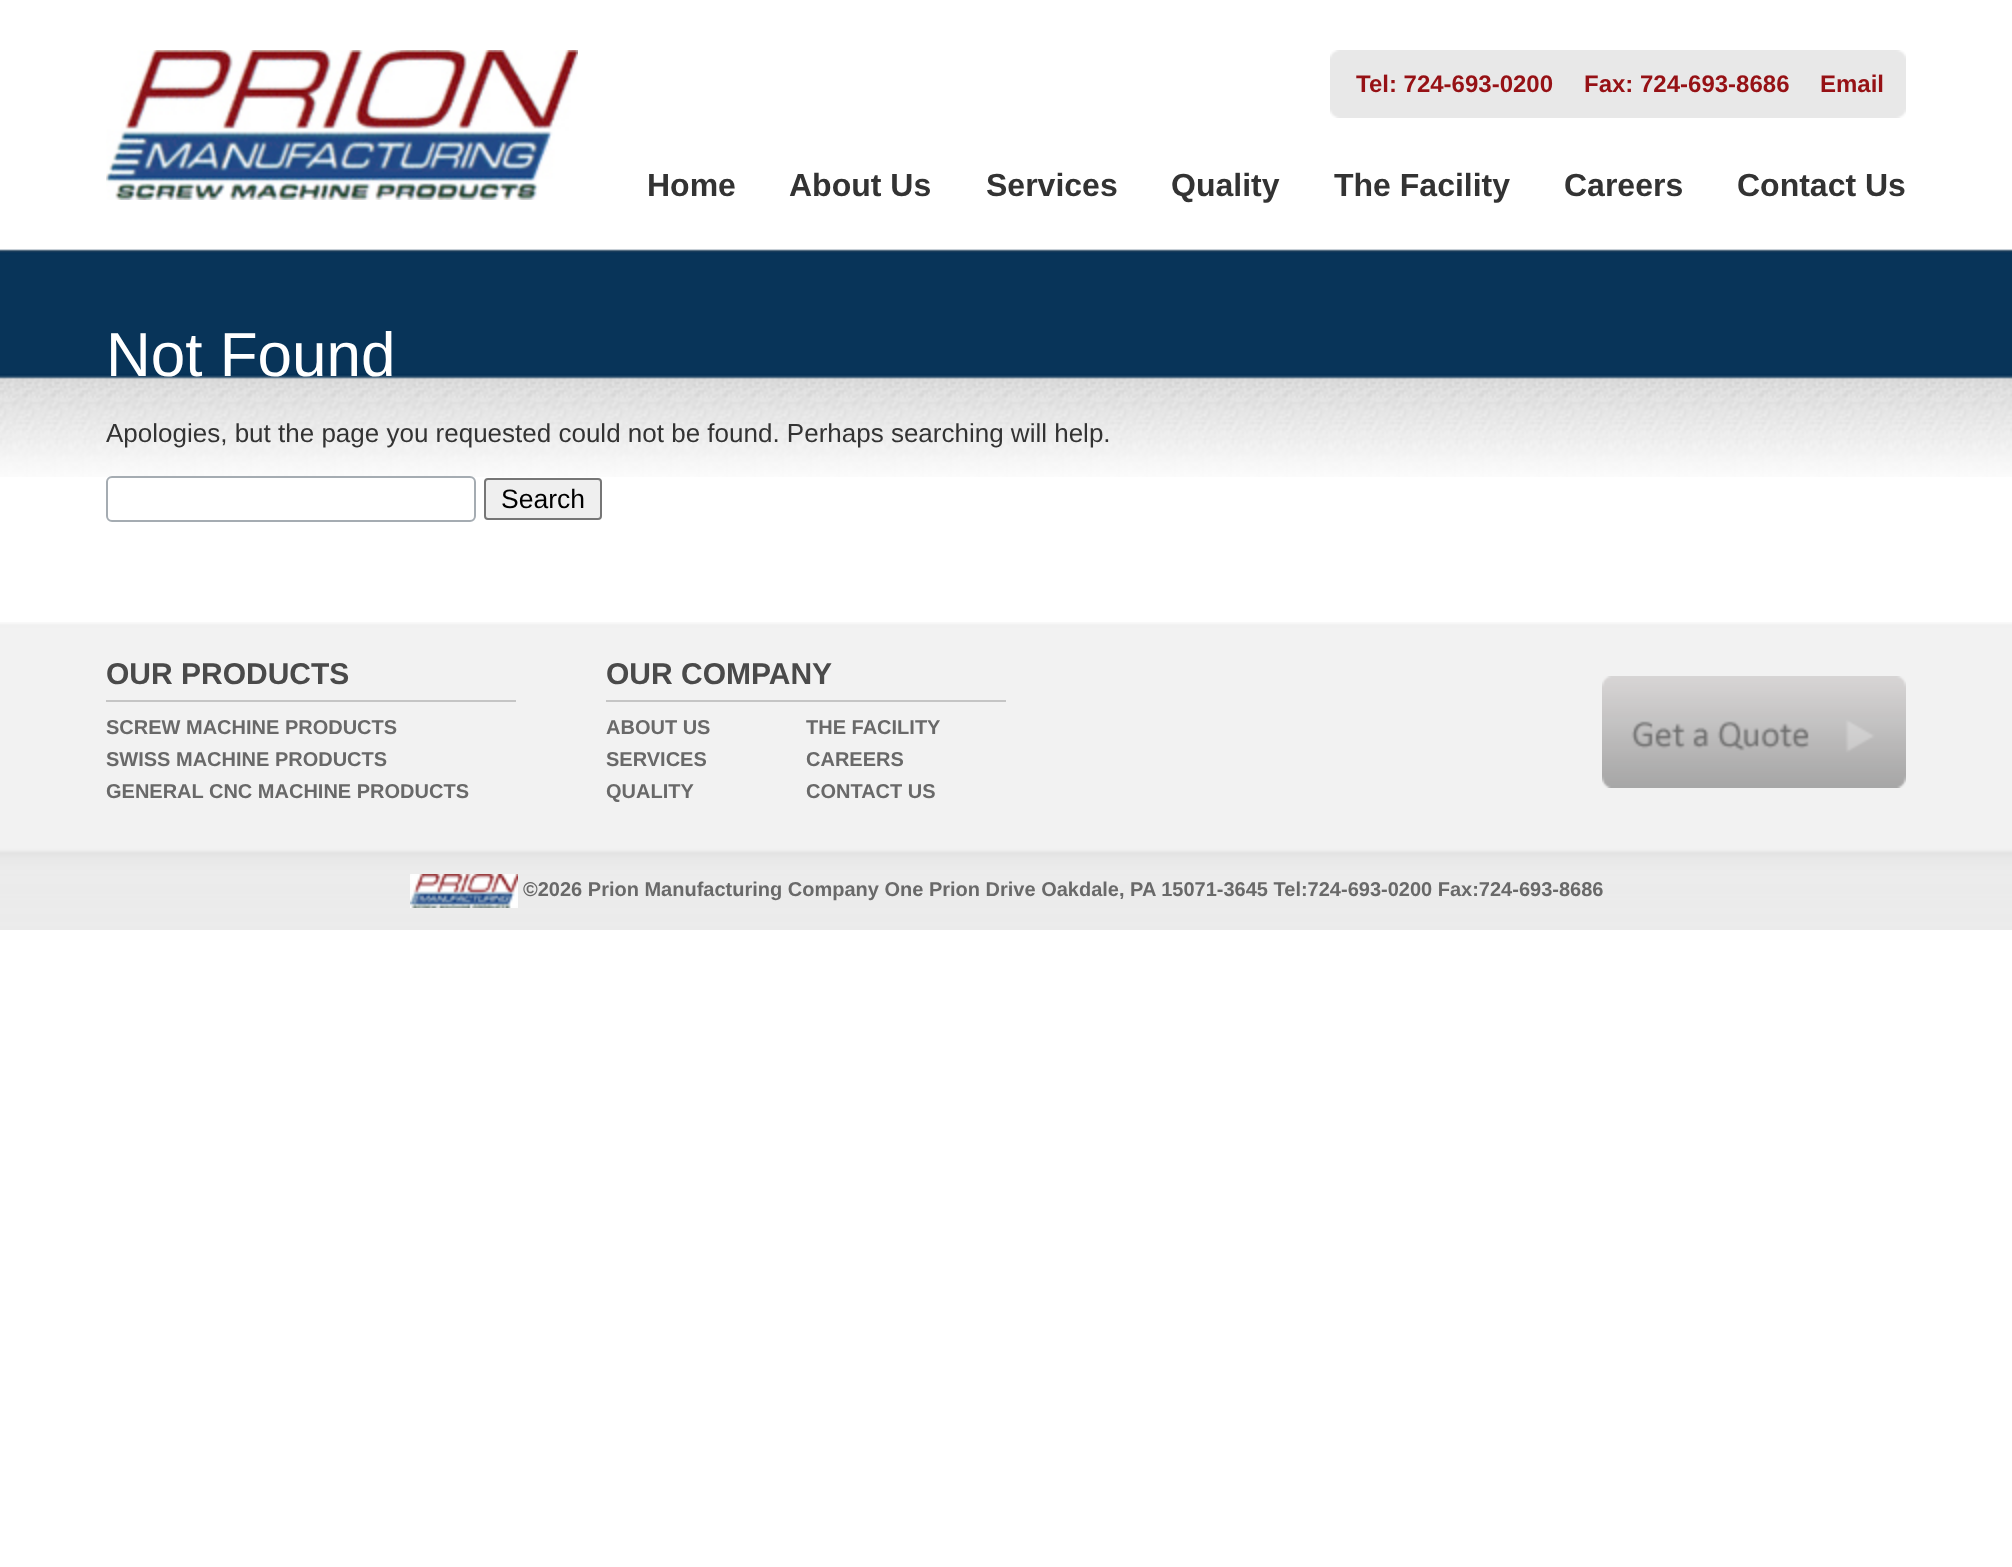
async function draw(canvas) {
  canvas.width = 2012;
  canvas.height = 1567;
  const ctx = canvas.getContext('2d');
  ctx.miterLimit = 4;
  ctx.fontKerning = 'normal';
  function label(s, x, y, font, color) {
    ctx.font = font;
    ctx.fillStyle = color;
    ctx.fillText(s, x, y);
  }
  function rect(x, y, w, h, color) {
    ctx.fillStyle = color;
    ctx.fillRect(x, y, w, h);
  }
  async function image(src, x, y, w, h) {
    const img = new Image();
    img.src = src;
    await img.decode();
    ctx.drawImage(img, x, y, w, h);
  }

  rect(0, 0, 2012, 1567, '#fff');
  await image('assets/img1.png', 0, 249, 2012, 228);
  await image('assets/img2.png', 106, 50, 472, 150);
  await image('assets/img3.png', 1330, 50, 576, 68);
  label('Tel: 724-693-0200', 1356, 92, 'bold 24px Liberation Sans', '#961115');
  label('Fax: 724-693-8686', 1584, 92, 'bold 24px Liberation Sans', '#961115');
  label('Email', 1820, 92, 'bold 24px Liberation Sans', '#961115');
  label('Home', 647, 196, 'bold 32px Liberation Sans', '#333');
  label('About Us', 789, 196, 'bold 32px Liberation Sans', '#333');
  label('Services', 986, 196, 'bold 32px Liberation Sans', '#333');
  label('Quality', 1171, 196, 'bold 32px Liberation Sans', '#333');
  label('The Facility', 1334, 196, 'bold 32px Liberation Sans', '#333');
  label('Careers', 1564, 196, 'bold 32px Liberation Sans', '#333');
  label('Contact Us', 1737, 196, 'bold 32px Liberation Sans', '#333');
  label('Not Found', 106, 376, '62px Liberation Sans', '#fff');
  label('Apologies, but the page you requested could not be found. Perhaps searching will help.', 106, 442, '26px Liberation Sans', '#333');
  ctx.fillStyle = '#fff';
  ctx.beginPath();
  ctx.roundRect(107, 477, 368, 44, 5);
  ctx.fill();
  ctx.strokeStyle = '#a5acb2';
  ctx.lineWidth = 2;
  ctx.stroke();
  ctx.fillStyle = '#efefef';
  ctx.beginPath();
  ctx.roundRect(485, 479, 116, 40, 3);
  ctx.fill();
  ctx.strokeStyle = '#767676';
  ctx.stroke();
  label('Search', 501, 508, '26.5px Liberation Sans', '#000');
  await image('assets/img4.png', 0, 622, 2012, 308);
  rect(106, 700, 410, 2, '#c5c5c5');
  label('OUR PRODUCTS', 106, 684, 'bold 30px Liberation Sans', '#4a4a4a');
  label('SCREW MACHINE PRODUCTS', 106, 734, 'bold 20px Liberation Sans', '#696969');
  label('SWISS MACHINE PRODUCTS', 106, 766, 'bold 20px Liberation Sans', '#696969');
  label('GENERAL CNC MACHINE PRODUCTS', 106, 798, 'bold 20px Liberation Sans', '#696969');
  rect(606, 700, 400, 2, '#c5c5c5');
  label('OUR COMPANY', 606, 684, 'bold 30px Liberation Sans', '#4a4a4a');
  label('ABOUT US', 606, 734, 'bold 20px Liberation Sans', '#696969');
  label('SERVICES', 606, 766, 'bold 20px Liberation Sans', '#696969');
  label('QUALITY', 606, 798, 'bold 20px Liberation Sans', '#696969');
  label('THE FACILITY', 806, 734, 'bold 20px Liberation Sans', '#696969');
  label('CAREERS', 806, 766, 'bold 20px Liberation Sans', '#696969');
  label('CONTACT US', 806, 798, 'bold 20px Liberation Sans', '#696969');
  await image('assets/img5.png', 1602, 676, 304, 112);
  await image('assets/img6.png', 410, 874, 108, 34);
  label('©2026 Prion Manufacturing Company One Prion Drive Oakdale, PA 15071-3645 Tel:724-693-0200 Fax:724-693-8686', 523, 896, 'bold 20px Liberation Sans', '#696969');
}

draw(document.querySelector('canvas'));
